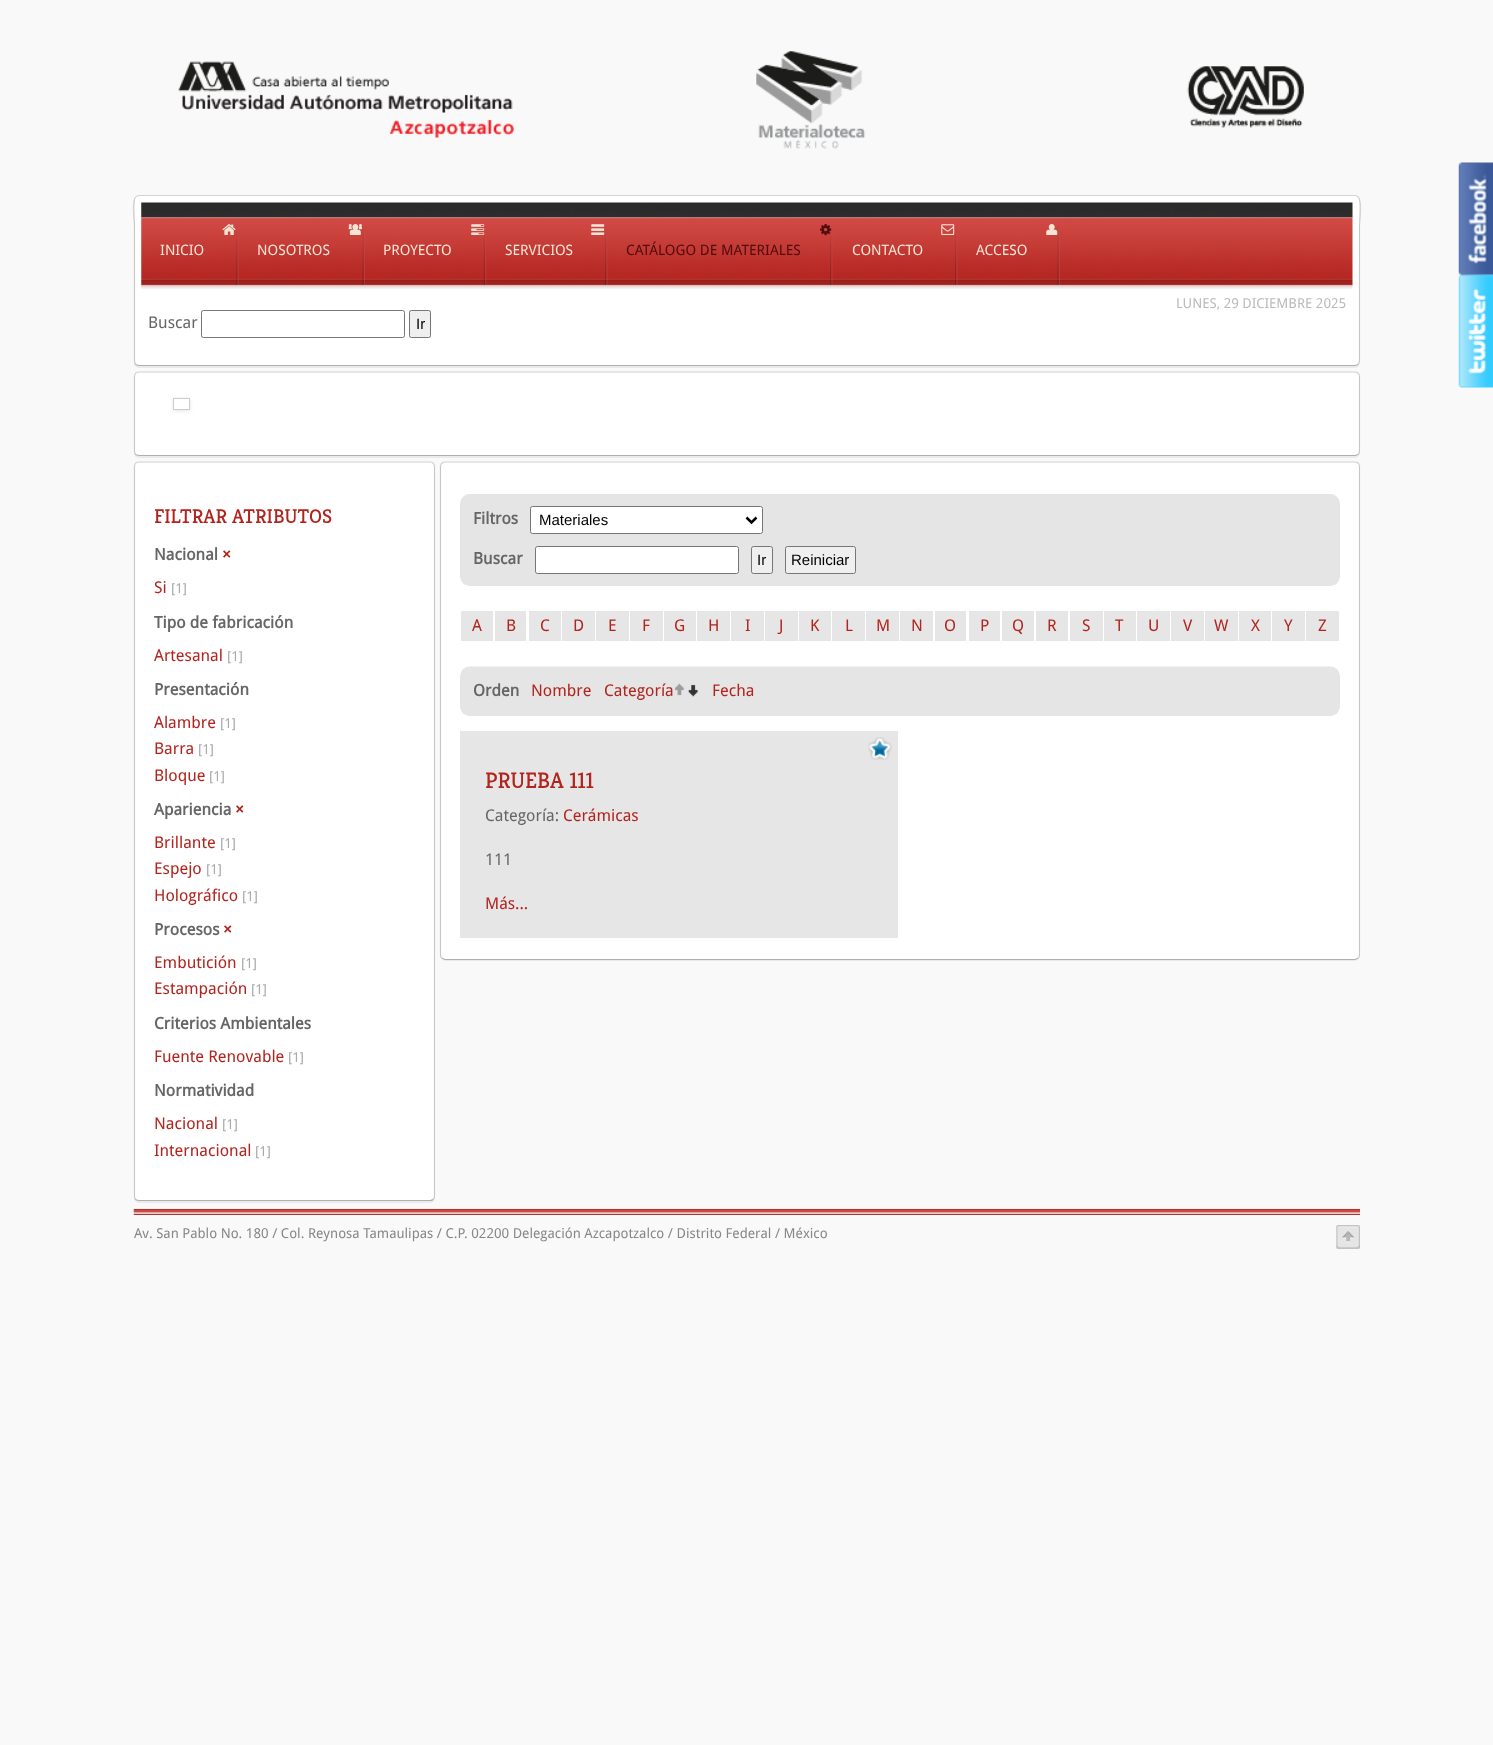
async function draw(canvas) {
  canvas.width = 1493;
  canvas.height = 1745;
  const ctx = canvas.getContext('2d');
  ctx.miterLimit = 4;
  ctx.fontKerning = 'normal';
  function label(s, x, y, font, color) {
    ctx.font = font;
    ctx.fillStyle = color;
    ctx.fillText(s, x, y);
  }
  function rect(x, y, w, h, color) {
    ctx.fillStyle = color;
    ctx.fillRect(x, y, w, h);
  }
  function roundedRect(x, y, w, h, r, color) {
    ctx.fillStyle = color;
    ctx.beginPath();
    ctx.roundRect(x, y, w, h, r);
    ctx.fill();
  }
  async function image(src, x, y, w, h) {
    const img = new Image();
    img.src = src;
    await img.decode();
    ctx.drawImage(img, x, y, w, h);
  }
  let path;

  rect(0, 0, 1493, 1745, '#f9f9f9');
  await image('assets/img1.png', 178, 51, 1126, 98);
  ctx.fillStyle = '#0000000f';
  ctx.filter = 'blur(0.5px)';
  ctx.beginPath();
  ctx.roundRect(134, 196, 1226, 172, 5);
  ctx.fill();
  ctx.filter = 'none';
  roundedRect(135, 196, 1224, 169, 4, '#fff');
  path = new Path2D('M1358 364.5L1355 365.5H139L135.5 364.5');
  ctx.strokeStyle = '#00000040';
  ctx.lineWidth = 1.2;
  ctx.stroke(path);
  path = new Path2D('M135.5 364.5L134.5 361V227C134.5 219 130 195.5 139 195.5H1355C1364 195.5 1359.5 219 1359.5 227V361L1358 364.5');
  ctx.strokeStyle = '#00000026';
  ctx.stroke(path);
  await image('assets/img2.png', 141, 202, 1212, 16);
  await image('assets/img3.png', 141, 217, 1212, 72);
  await image('assets/img4.png', 236, 229, 3, 56);
  await image('assets/img5.png', 222, 224, 14, 11);
  label('INICIO', 160, 255, '14.4px Droid Sans', '#f4e4d5');
  await image('assets/img6.png', 362, 227, 3, 58);
  await image('assets/img7.png', 348, 224, 14, 11);
  label('NOSOTROS', 257, 255, '14.4px Droid Sans', '#f4e4d5');
  await image('assets/img8.png', 483, 226, 4, 59);
  await image('assets/img9.png', 471, 224, 14, 11);
  label('PROYECTO', 383, 255, '14.4px Droid Sans', '#f4e4d5');
  await image('assets/img10.png', 605, 226, 3, 59);
  await image('assets/img11.png', 591, 224, 14, 11);
  label('SERVICIOS', 505, 255, '14.4px Droid Sans', '#f4e4d5');
  await image('assets/img12.png', 830, 226, 3, 59);
  await image('assets/img13.png', 820, 224, 12, 12);
  label('CATÁLOGO DE MATERIALES', 626, 255, '14.4px Droid Sans', '#520c0e');
  await image('assets/img12.png', 955, 226, 3, 59);
  await image('assets/img14.png', 941, 224, 14, 11);
  label('CONTACTO', 852, 255, '14.4px Droid Sans', '#f4e4d5');
  await image('assets/img15.png', 1057, 227, 3, 58);
  await image('assets/img16.png', 1046, 224, 12, 11);
  label('ACCESO', 976, 255, '14.4px Droid Sans', '#f4e4d5');
  label('LUNES, 29 DICIEMBRE 2025', 1176, 308, '13.75px Droid Sans', '#bbb');
  label('Buscar', 148, 328, '16.25px Droid Sans', '#666');
  ctx.beginPath();
  ctx.roundRect(201.5, 310.5, 203, 27, 2);
  ctx.strokeStyle = '#767676';
  ctx.lineWidth = 1;
  ctx.stroke();
  ctx.fillStyle = '#efefef';
  ctx.beginPath();
  ctx.roundRect(409.5, 310.5, 21, 27, 2);
  ctx.fill();
  ctx.stroke();
  label('Ir', 416, 329, '15px Liberation Sans', '#000');
  ctx.fillStyle = '#0000000f';
  ctx.filter = 'blur(0.5px)';
  ctx.beginPath();
  ctx.roundRect(134, 373, 1226, 85, 5);
  ctx.fill();
  ctx.filter = 'none';
  roundedRect(135, 373, 1224, 82, 4, '#fff');
  path = new Path2D('M1358 454.5L1355 455.5H139L135.5 454.5');
  ctx.strokeStyle = '#00000040';
  ctx.lineWidth = 1.2;
  ctx.stroke(path);
  path = new Path2D('M135.5 454.5C135 453.5 134.5 452.5 134.5 451V376C134.5 375 135 374 135.5 373C136.5 372.5 137.5 372 139 372H1355C1356 372 1357.5 372.5 1358 373C1359 374 1359.5 375 1359.5 376V451C1359.5 452.5 1359 453.5 1358 454.5');
  ctx.strokeStyle = '#00000026';
  ctx.stroke(path);
  ctx.save();
  path = new Path2D('M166 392H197V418H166ZM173 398H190V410H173Z');
  ctx.clip(path, 'evenodd');
  ctx.fillStyle = '#0000001a';
  ctx.filter = 'blur(2px)';
  ctx.beginPath();
  ctx.rect(173, 399, 17, 12);
  ctx.fill();
  ctx.filter = 'none';
  ctx.restore();
  ctx.strokeStyle = '#ccc';
  ctx.lineWidth = 1;
  ctx.strokeRect(173.5, 398.5, 16, 11);
  ctx.fillStyle = '#0000000f';
  ctx.filter = 'blur(0.5px)';
  ctx.beginPath();
  ctx.roundRect(134, 463, 301, 740, 5);
  ctx.fill();
  ctx.filter = 'none';
  roundedRect(135, 463, 299, 737, 4, '#fff');
  path = new Path2D('M433 1199.5C432.5 1200 431 1200.5 430 1200.5H139C137.5 1200.5 136.5 1200 135.5 1199.5');
  ctx.strokeStyle = '#00000040';
  ctx.lineWidth = 1.2;
  ctx.stroke(path);
  path = new Path2D('M135.5 1199.5C135 1198.5 134.5 1197.5 134.5 1196V466C134.5 465 135 464 135.5 463C136.5 462.5 137.5 462 139 462H430C431 462 432.5 462.5 433 463C434 464 434.5 465 434.5 466V1196C434.5 1197.5 434 1198.5 433 1199.5');
  ctx.strokeStyle = '#00000026';
  ctx.stroke(path);
  label('FILTRAR ATRIBUTOS', 154, 523, '20px Kreon', '#b2251f');
  label('Nacional', 154, 560, 'bold 16.25px Droid Sans', '#666');
  label('×', 222, 560, 'bold 16.25px Droid Sans', '#b2251f');
  label('Si', 154, 593, '16.25px Droid Sans', '#b2251f');
  label('[1]', 171, 593, '13.75px Droid Sans', '#aaa');
  label('Tipo de fabricación', 154, 628, 'bold 16.25px Droid Sans', '#666');
  label('Artesanal', 154, 661, '16.25px Droid Sans', '#b2251f');
  label('[1]', 227, 661, '13.75px Droid Sans', '#aaa');
  label('Presentación', 154, 695, 'bold 16.25px Droid Sans', '#666');
  label('Alambre', 154, 728, '16.25px Droid Sans', '#b2251f');
  label('[1]', 220, 728, '13.75px Droid Sans', '#aaa');
  label('Barra', 154, 754, '16.25px Droid Sans', '#b2251f');
  label('[1]', 198, 754, '13.75px Droid Sans', '#aaa');
  label('Bloque', 154, 781, '16.25px Droid Sans', '#b2251f');
  label('[1]', 209, 781, '13.75px Droid Sans', '#aaa');
  label('Apariencia', 154, 815, 'bold 16.25px Droid Sans', '#666');
  label('×', 235, 815, 'bold 16.25px Droid Sans', '#b2251f');
  label('Brillante', 154, 848, '16.25px Droid Sans', '#b2251f');
  label('[1]', 220, 848, '13.75px Droid Sans', '#aaa');
  label('Espejo', 154, 874, '16.25px Droid Sans', '#b2251f');
  label('[1]', 206, 874, '13.75px Droid Sans', '#aaa');
  label('Holográfico', 154, 901, '16.25px Droid Sans', '#b2251f');
  label('[1]', 242, 901, '13.75px Droid Sans', '#aaa');
  label('Procesos', 154, 935, 'bold 16.25px Droid Sans', '#666');
  label('×', 223, 935, 'bold 16.25px Droid Sans', '#b2251f');
  label('Embutición', 154, 968, '16.25px Droid Sans', '#b2251f');
  label('[1]', 241, 968, '13.75px Droid Sans', '#aaa');
  label('Estampación', 154, 994, '16.25px Droid Sans', '#b2251f');
  label('[1]', 251, 994, '13.75px Droid Sans', '#aaa');
  label('Criterios Ambientales', 154, 1029, 'bold 16.25px Droid Sans', '#666');
  label('Fuente Renovable', 154, 1062, '16.25px Droid Sans', '#b2251f');
  label('[1]', 288, 1062, '13.75px Droid Sans', '#aaa');
  label('Normatividad', 154, 1096, 'bold 16.25px Droid Sans', '#666');
  label('Nacional', 154, 1129, '16.25px Droid Sans', '#b2251f');
  label('[1]', 222, 1129, '13.75px Droid Sans', '#aaa');
  label('Internacional', 154, 1156, '16.25px Droid Sans', '#b2251f');
  label('[1]', 255, 1156, '13.75px Droid Sans', '#aaa');
  ctx.fillStyle = '#0000000f';
  ctx.filter = 'blur(0.5px)';
  ctx.beginPath();
  ctx.roundRect(440, 463, 920, 498, 5);
  ctx.fill();
  ctx.filter = 'none';
  roundedRect(441, 463, 918, 496, 4, '#fff');
  path = new Path2D('M1358 958L1355 959.5H445L442 958');
  ctx.strokeStyle = '#00000040';
  ctx.stroke(path);
  path = new Path2D('M442 958C441 957.5 440.5 956 440.5 955V466C440.5 465 441 464 442 463C442.5 462.5 444 462 445 462H1355C1356 462 1357.5 462.5 1358 463C1359 464 1359.5 465 1359.5 466V955C1359.5 956 1359 957.5 1358 958');
  ctx.strokeStyle = '#00000026';
  ctx.stroke(path);
  await image('assets/img17.png', 460, 494, 880, 92);
  label('Filtros', 473, 524, 'bold 16.25px Droid Sans', '#666');
  ctx.fillStyle = '#fff';
  ctx.beginPath();
  ctx.roundRect(530.5, 506.5, 232, 27, 2);
  ctx.fill();
  ctx.strokeStyle = '#767676';
  ctx.lineWidth = 1;
  ctx.stroke();
  path = new Path2D('M746.5 517.5L751.5 522.5L756.5 517.5');
  ctx.strokeStyle = '#000';
  ctx.lineWidth = 2.5;
  ctx.stroke(path);
  label('Materiales', 539, 525, '15px Liberation Sans', '#000');
  label('Buscar', 473, 564, 'bold 16.25px Droid Sans', '#666');
  ctx.fillStyle = '#fff';
  ctx.beginPath();
  ctx.roundRect(535.5, 546.5, 203, 27, 2);
  ctx.fill();
  ctx.strokeStyle = '#767676';
  ctx.lineWidth = 1;
  ctx.stroke();
  ctx.fillStyle = '#efefef';
  ctx.beginPath();
  ctx.roundRect(751.5, 546.5, 21, 27, 2);
  ctx.fill();
  ctx.stroke();
  label('Ir', 757, 565, '15px Liberation Sans', '#000');
  ctx.fillStyle = '#efefef';
  ctx.beginPath();
  ctx.roundRect(785.5, 546.5, 70, 27, 2);
  ctx.fill();
  ctx.stroke();
  label('Reiniciar', 791, 565, '15px Liberation Sans', '#000');
  rect(461, 611, 32, 30, '#e6e6e6');
  label('A', 472, 631, '16.25px Droid Sans', '#b2251f');
  rect(495, 611, 31, 30, '#e6e6e6');
  label('B', 506, 631, '16.25px Droid Sans', '#b2251f');
  rect(529, 611, 32, 30, '#e6e6e6');
  label('C', 540, 631, '16.25px Droid Sans', '#b2251f');
  rect(562, 611, 33, 30, '#e6e6e6');
  label('D', 573, 631, '16.25px Droid Sans', '#b2251f');
  rect(596, 611, 33, 30, '#e6e6e6');
  label('E', 608, 631, '16.25px Droid Sans', '#b2251f');
  rect(630, 611, 33, 30, '#e6e6e6');
  label('F', 642, 631, '16.25px Droid Sans', '#b2251f');
  rect(664, 611, 32, 30, '#e6e6e6');
  label('G', 674, 631, '16.25px Droid Sans', '#b2251f');
  rect(697, 611, 33, 30, '#e6e6e6');
  label('H', 708, 631, '16.25px Droid Sans', '#b2251f');
  rect(731, 611, 33, 30, '#e6e6e6');
  label('I', 745, 631, '16.25px Droid Sans', '#b2251f');
  rect(765, 611, 33, 30, '#e6e6e6');
  label('J', 779, 631, '16.25px Droid Sans', '#b2251f');
  rect(799, 611, 32, 30, '#e6e6e6');
  label('K', 810, 631, '16.25px Droid Sans', '#b2251f');
  rect(832, 611, 33, 30, '#e6e6e6');
  label('L', 845, 631, '16.25px Droid Sans', '#b2251f');
  rect(866, 611, 33, 30, '#e6e6e6');
  label('M', 876, 631, '16.25px Droid Sans', '#b2251f');
  rect(900, 611, 33, 30, '#e6e6e6');
  label('N', 911, 631, '16.25px Droid Sans', '#b2251f');
  rect(935, 611, 31, 30, '#e6e6e6');
  label('O', 944, 631, '16.25px Droid Sans', '#b2251f');
  rect(969, 611, 31, 30, '#e6e6e6');
  label('P', 980, 631, '16.25px Droid Sans', '#b2251f');
  rect(1002, 611, 32, 30, '#e6e6e6');
  label('Q', 1012, 631, '16.25px Droid Sans', '#b2251f');
  rect(1036, 611, 32, 30, '#e6e6e6');
  label('R', 1047, 631, '16.25px Droid Sans', '#b2251f');
  rect(1070, 611, 33, 30, '#e6e6e6');
  label('S', 1082, 631, '16.25px Droid Sans', '#b2251f');
  rect(1104, 611, 32, 30, '#e6e6e6');
  label('T', 1115, 631, '16.25px Droid Sans', '#b2251f');
  rect(1137, 611, 33, 30, '#e6e6e6');
  label('U', 1148, 631, '16.25px Droid Sans', '#b2251f');
  rect(1171, 611, 33, 30, '#e6e6e6');
  label('V', 1183, 631, '16.25px Droid Sans', '#b2251f');
  rect(1205, 611, 33, 30, '#e6e6e6');
  label('W', 1214, 631, '16.25px Droid Sans', '#b2251f');
  rect(1239, 611, 32, 30, '#e6e6e6');
  label('X', 1251, 631, '16.25px Droid Sans', '#b2251f');
  rect(1272, 611, 33, 30, '#e6e6e6');
  label('Y', 1284, 631, '16.25px Droid Sans', '#b2251f');
  rect(1306, 611, 33, 30, '#e6e6e6');
  label('Z', 1318, 631, '16.25px Droid Sans', '#b2251f');
  await image('assets/img18.png', 460, 666, 880, 50);
  label('Orden', 473, 696, 'bold 16.25px Droid Sans', '#666');
  label('Nombre', 531, 696, '16.25px Droid Sans', '#b2251f');
  label('Categoría', 604, 696, '16.25px Droid Sans', '#b2251f');
  await image('assets/img19.png', 674, 683, 24, 14);
  label('Fecha', 712, 696, '16.25px Droid Sans', '#b2251f');
  rect(460, 731, 438, 207, '#e6e6e6');
  await image('assets/img20.png', 868, 737, 24, 23);
  label('PRUEBA 111', 485, 788, '22.5px Kreon', '#b2251f');
  label('Categoría:', 485, 821, '16.25px Droid Sans', '#666');
  label('Cerámicas', 563, 821, '16.25px Droid Sans', '#b2251f');
  label('111', 485, 865, '16.25px Droid Sans', '#666');
  label('Más...', 485, 909, '16.25px Droid Sans', '#b2251f');
  await image('assets/img21.png', 133, 1208, 1227, 7);
  await image('assets/img22.png', 1458, 162, 35, 114);
  await image('assets/img23.png', 1458, 275, 35, 113);
  label('Av. San Pablo No. 180 / Col. Reynosa Tamaulipas / C.P. 02200 Delegación Azcapotzalco / Distrito Federal / México', 134, 1238, '13.75px Droid Sans', '#888');
  await image('assets/img24.png', 1336, 1225, 24, 24);
}

draw(document.querySelector('canvas'));
